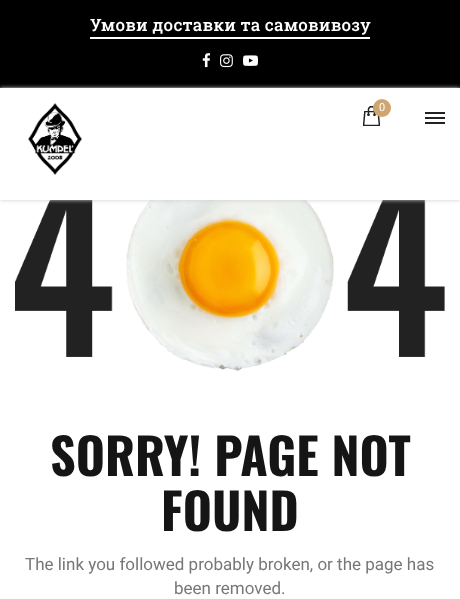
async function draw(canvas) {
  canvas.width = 460;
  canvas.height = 599;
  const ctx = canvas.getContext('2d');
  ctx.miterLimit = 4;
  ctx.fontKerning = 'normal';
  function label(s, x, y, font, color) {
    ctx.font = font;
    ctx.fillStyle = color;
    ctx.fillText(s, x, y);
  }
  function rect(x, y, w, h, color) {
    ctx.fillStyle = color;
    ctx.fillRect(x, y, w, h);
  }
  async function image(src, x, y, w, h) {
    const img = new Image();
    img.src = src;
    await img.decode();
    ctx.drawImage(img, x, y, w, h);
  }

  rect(0, 0, 460, 599, '#fff');
  rect(0, 0, 460, 87, '#000');
  rect(0, 87, 460, 1, '#1a1a1a');
  rect(90, 37, 280, 2, '#fff');
  ctx.letterSpacing = '0.2px';
  label('Умови доставки та самовивозу', 90, 31, '500 17px Roboto Slab', '#fff');
  await image('assets/img1.png', 202, 53, 9, 15);
  await image('assets/img2.png', 220, 54, 13, 14);
  await image('assets/img3.png', 243, 55, 15, 11);
  await image('assets/img7.png', 15, 200, 430, 171);
  ctx.fillStyle = '#ccc';
  ctx.filter = 'blur(2px)';
  ctx.beginPath();
  ctx.rect(0, 88, 460, 112);
  ctx.fill();
  ctx.filter = 'none';
  rect(0, 88, 460, 112, '#fff');
  await image('assets/img4.png', 28, 103, 54, 72);
  await image('assets/img5.png', 363, 106, 17, 20);
  ctx.fillStyle = '#cfa670';
  ctx.beginPath();
  ctx.arc(382, 108, 9, 0, 2 * Math.PI);
  ctx.fill();
  ctx.letterSpacing = '0px';
  label('0', 379, 111, '11px Roboto', '#fff');
  await image('assets/img6.png', 425, 112, 20, 12);
  label('SORRY! PAGE NOT', 50, 476, 'bold 50px Oswald', '#151515');
  label('FOUND', 161, 531, 'bold 50px Oswald', '#151515');
  label('The link you followed probably broken, or the page has', 25, 570, '17px Roboto', '#777');
  label('been removed.', 174, 594, '17px Roboto', '#777');
}

draw(document.querySelector('canvas'));
